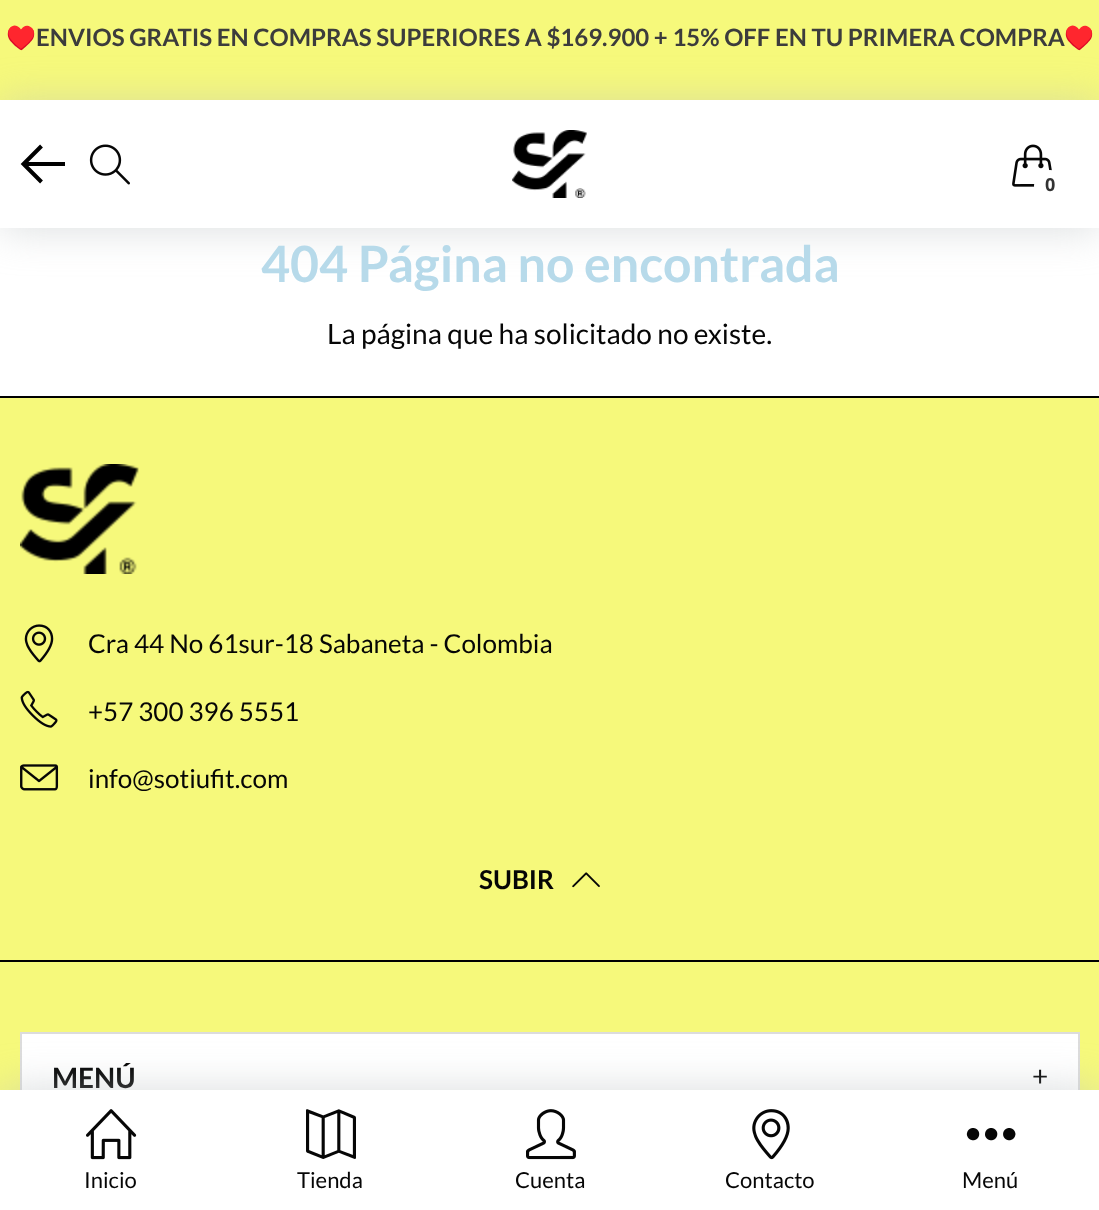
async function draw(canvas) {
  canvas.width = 1099;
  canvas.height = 1210;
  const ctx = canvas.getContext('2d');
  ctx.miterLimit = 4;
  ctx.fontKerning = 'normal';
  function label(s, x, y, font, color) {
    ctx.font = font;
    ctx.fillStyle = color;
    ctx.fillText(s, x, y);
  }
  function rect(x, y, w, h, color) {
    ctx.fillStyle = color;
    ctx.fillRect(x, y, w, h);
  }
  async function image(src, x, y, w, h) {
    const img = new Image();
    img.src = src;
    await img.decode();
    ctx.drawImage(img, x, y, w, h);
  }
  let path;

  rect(0, 0, 1099, 1210, '#fff');
  rect(0, 0, 1099, 100, '#f6f97b');
  label('♥️', 6, 46, 'bold 24px Noto Color Emoji', '#3c3c3c');
  label('ENVIOS GRATIS EN COMPRAS SUPERIORES A $169.900 + 15% OFF EN TU PRIMERA COMPRA', 36, 46, 'bold 24px Lato', '#3c3c3c');
  label('♥️', 1064, 46, 'bold 24px Noto Color Emoji', '#3c3c3c');
  ctx.save();
  path = new Path2D('M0 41H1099V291H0ZM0 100H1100V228H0Z');
  ctx.clip(path, 'evenodd');
  ctx.fillStyle = '#babfc280';
  ctx.filter = 'blur(20px)';
  ctx.beginPath();
  ctx.rect(0, 102, 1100, 128);
  ctx.fill();
  ctx.filter = 'none';
  ctx.restore();
  path = new Path2D('M41.5 182L23.5 164L41.5 146M65 164H23.5');
  ctx.strokeStyle = '#000';
  ctx.lineWidth = 4;
  ctx.stroke(path);
  await image('assets/img1.png', 89, 144, 41, 41);
  await image('assets/img2.png', 512, 130, 75, 68);
  await image('assets/img3.png', 1012, 144, 40, 43);
  ctx.fillStyle = '#fff';
  ctx.beginPath();
  ctx.arc(1050, 186, 16, 0, 2 * Math.PI);
  ctx.fill();
  label('0', 1045, 191, 'bold 18px Open Sans', '#333');
  label('404 Página no encontrada', 261, 282, 'bold 50px Lato', '#b7daea');
  label('La página que ha solicitado no existe.', 327, 344, '28px Lato', '#060606');
  rect(0, 398, 1099, 692, '#f6f97b');
  rect(0, 396, 1099, 2, '#000');
  rect(0, 960, 1099, 2, '#000');
  await image('assets/img4.png', 20, 464, 119, 110);
  await image('assets/img5.png', 24, 624, 30, 39);
  label('Cra 44 No 61sur-18 Sabaneta - Colombia', 88, 653, '26px Lato', '#060606');
  await image('assets/img6.png', 20, 690, 38, 38);
  label('+57 300 396 5551', 88, 721, '26px Lato', '#060606');
  await image('assets/img7.png', 20, 764, 39, 27);
  label('info@sotiufit.com', 88, 788, '26px Lato', '#060606');
  label('SUBIR', 479, 889, 'bold 26px Lato', '#060606');
  await image('assets/img8.png', 572, 872, 28, 16);
  rect(22, 1034, 1056, 56, '#fff');
  ctx.strokeStyle = '#dcdcdc';
  ctx.lineWidth = 2;
  ctx.strokeRect(21, 1033, 1058, 90);
  label('MENÚ', 52, 1088, 'bold 28px Lato', '#000');
  label('+', 1032, 1086, '28px Lato', '#000');
  ctx.fillStyle = '#babfc280';
  ctx.filter = 'blur(20px)';
  ctx.beginPath();
  ctx.rect(0, 1088, 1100, 120);
  ctx.fill();
  ctx.filter = 'none';
  rect(0, 1090, 1099, 120, '#fff');
  await image('assets/img9.png', 86, 1109, 51, 51);
  label('Inicio', 84, 1188, '22px Lato', '#060606');
  await image('assets/img10.png', 306, 1109, 50, 50);
  label('Tienda', 297, 1188, '22px Lato', '#060606');
  await image('assets/img11.png', 526, 1109, 50, 51);
  label('Cuenta', 515, 1188, '22px Lato', '#060606');
  await image('assets/img12.png', 752, 1109, 38, 51);
  label('Contacto', 725, 1188, '22px Lato', '#060606');
  await image('assets/img13.png', 966, 1128, 50, 13);
  label('Menú', 962, 1188, '22px Lato', '#060606');
}

draw(document.querySelector('canvas'));
